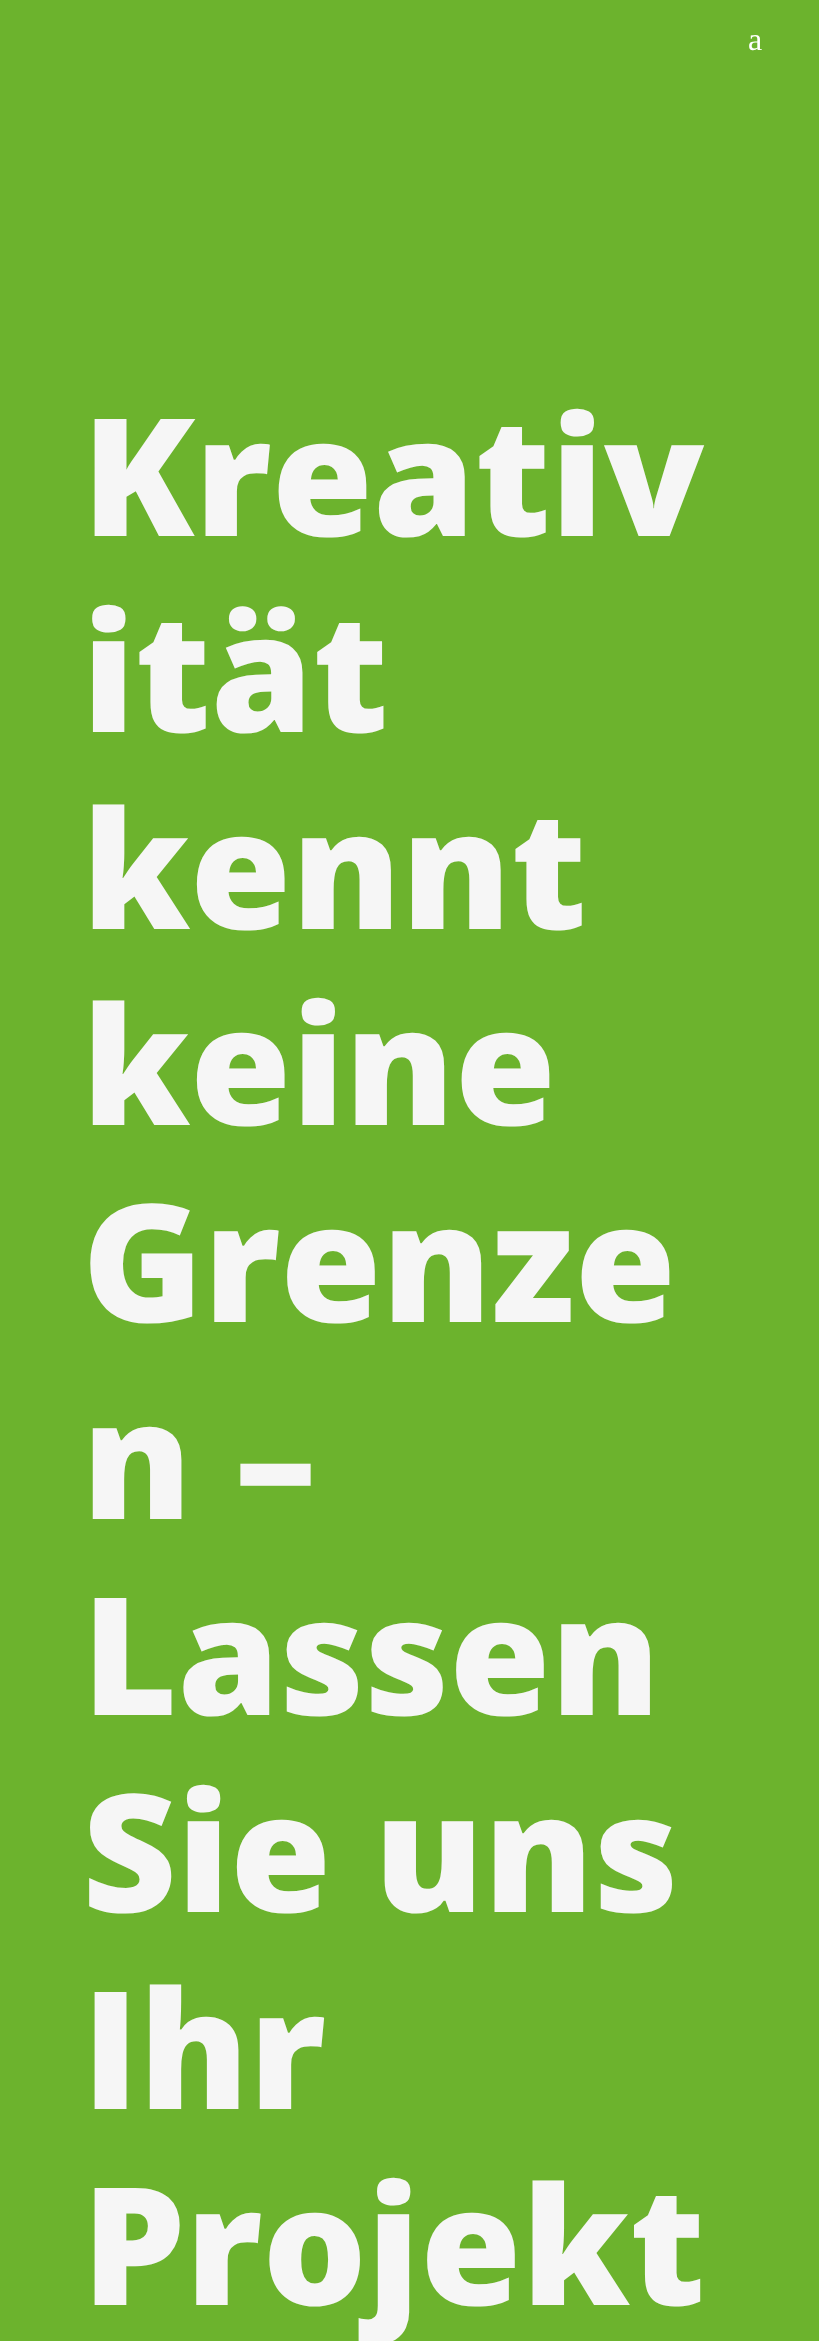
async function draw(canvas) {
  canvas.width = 819;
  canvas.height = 2341;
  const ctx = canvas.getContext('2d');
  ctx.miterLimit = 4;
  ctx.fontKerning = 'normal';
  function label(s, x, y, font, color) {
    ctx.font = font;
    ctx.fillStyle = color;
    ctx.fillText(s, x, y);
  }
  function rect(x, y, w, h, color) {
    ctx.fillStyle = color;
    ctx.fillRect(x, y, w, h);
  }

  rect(0, 0, 819, 2341, '#6cb32d');
  label('a', 748, 50, '32px Liberation Serif', '#fff');
  label('Kreativ', 82, 536, '800 164px Open Sans', '#f6f6f6');
  label('ität', 82, 732, '800 164px Open Sans', '#f6f6f6');
  label('kennt', 82, 929, '800 164px Open Sans', '#f6f6f6');
  label('keine', 82, 1125, '800 164px Open Sans', '#f6f6f6');
  label('Grenze', 82, 1322, '800 164px Open Sans', '#f6f6f6');
  label('n –', 82, 1519, '800 164px Open Sans', '#f6f6f6');
  label('Lassen', 82, 1715, '800 164px Open Sans', '#f6f6f6');
  label('Sie uns', 82, 1912, '800 164px Open Sans', '#f6f6f6');
  label('Ihr', 82, 2109, '800 164px Open Sans', '#f6f6f6');
  label('Projekt', 82, 2305, '800 164px Open Sans', '#f6f6f6');
}

draw(document.querySelector('canvas'));
